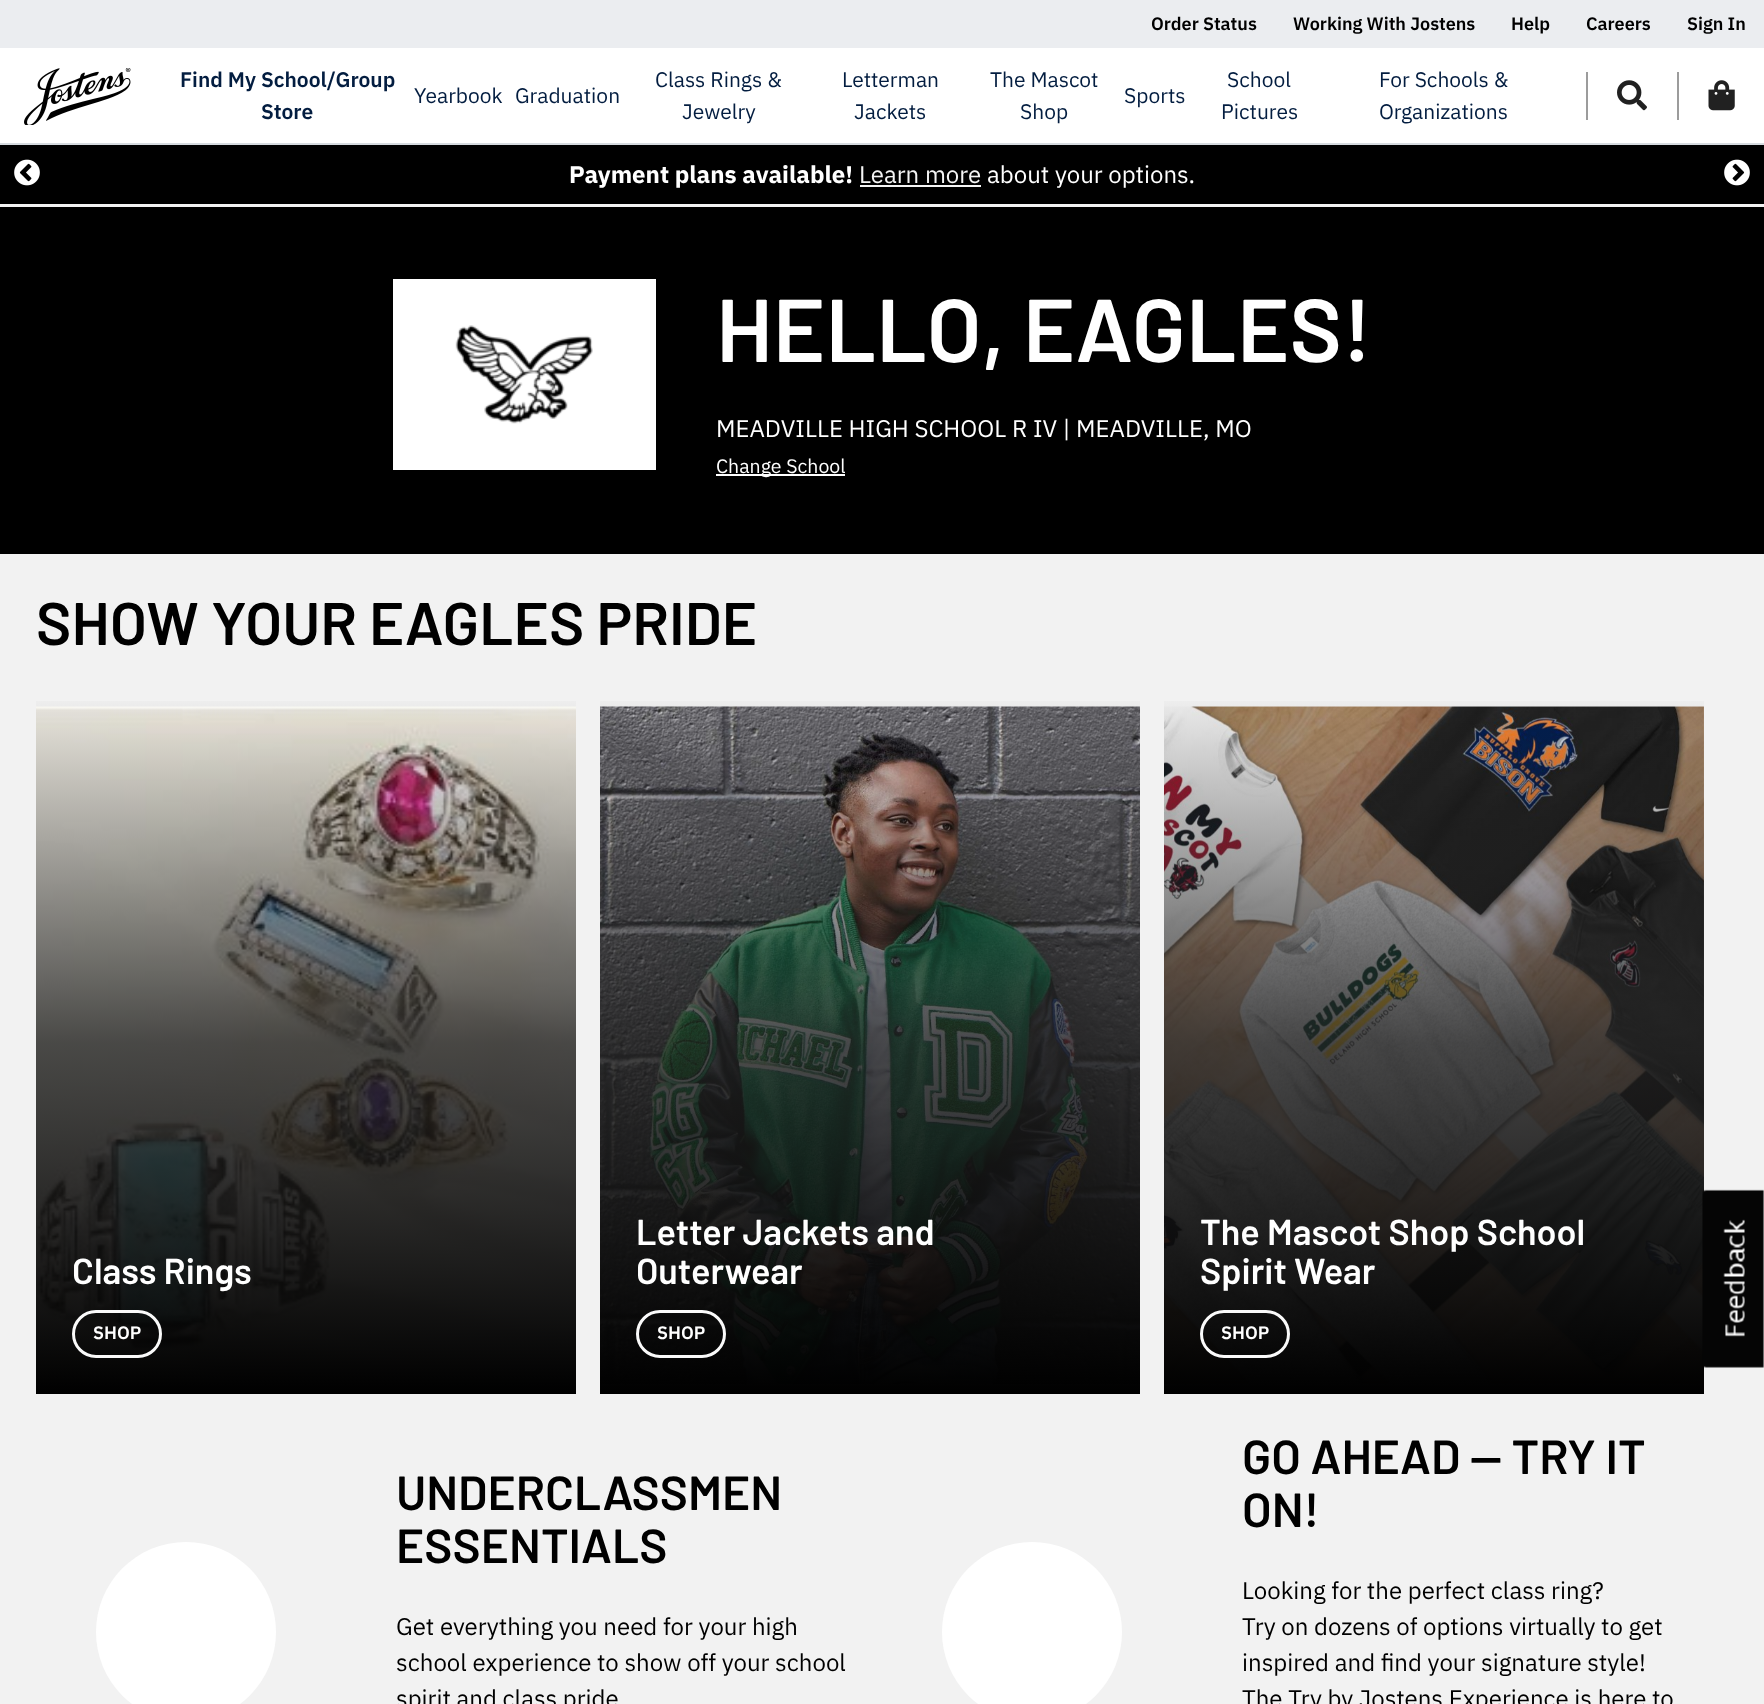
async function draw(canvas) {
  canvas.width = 1764;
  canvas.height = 1704;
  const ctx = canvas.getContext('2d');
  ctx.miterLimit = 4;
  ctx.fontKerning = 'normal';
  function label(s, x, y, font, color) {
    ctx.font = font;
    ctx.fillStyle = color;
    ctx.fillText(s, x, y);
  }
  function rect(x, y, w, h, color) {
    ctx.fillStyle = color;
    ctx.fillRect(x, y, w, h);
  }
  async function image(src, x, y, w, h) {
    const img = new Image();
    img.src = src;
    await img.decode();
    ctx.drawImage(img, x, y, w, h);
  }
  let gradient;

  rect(0, 0, 1764, 1704, '#f2f2f2');
  rect(0, 0, 1764, 48, '#ebedf0');
  label('Order Status', 1151, 30, '600 18px IBM Plex Sans', '#000');
  label('Working With Jostens', 1293, 30, '600 18px IBM Plex Sans', '#000');
  label('Help', 1511, 30, '600 18px IBM Plex Sans', '#000');
  label('Careers', 1586, 30, '600 18px IBM Plex Sans', '#000');
  label('Sign In', 1687, 30, '600 18px IBM Plex Sans', '#000');
  rect(0, 48, 1764, 95, '#fff');
  rect(0, 143, 1764, 2, '#d6dbe0');
  await image('assets/img1.png', 24, 68, 107, 57);
  label('Find My School/Group', 180, 87, '600 21px IBM Plex Sans', '#031d40');
  label('Store', 261, 119, '600 21px IBM Plex Sans', '#031d40');
  label('Yearbook', 414, 103, '21px IBM Plex Sans', '#031d40');
  label('Graduation', 515, 103, '21px IBM Plex Sans', '#031d40');
  label('Class Rings &', 655, 87, '21px IBM Plex Sans', '#031d40');
  label('Jewelry', 682, 119, '21px IBM Plex Sans', '#031d40');
  label('Letterman', 842, 87, '21px IBM Plex Sans', '#031d40');
  label('Jackets', 854, 119, '21px IBM Plex Sans', '#031d40');
  label('The Mascot', 990, 87, '21px IBM Plex Sans', '#031d40');
  label('Shop', 1020, 119, '21px IBM Plex Sans', '#031d40');
  label('Sports', 1124, 103, '21px IBM Plex Sans', '#031d40');
  label('School', 1227, 87, '21px IBM Plex Sans', '#031d40');
  label('Pictures', 1221, 119, '21px IBM Plex Sans', '#031d40');
  label('For Schools &', 1379, 87, '21px IBM Plex Sans', '#031d40');
  label('Organizations', 1379, 119, '21px IBM Plex Sans', '#031d40');
  rect(1586, 72, 2, 48, '#9c9c9c');
  await image('assets/img2.png', 1617, 80, 30, 31);
  rect(1677, 72, 2, 48, '#9c9c9c');
  await image('assets/img3.png', 1708, 80, 27, 31);
  rect(0, 145, 1764, 59, '#000');
  await image('assets/img4.png', 14, 159, 26, 27);
  label('Payment plans available!', 569, 183, 'bold 24px IBM Plex Sans', '#fff');
  label('Learn more', 859, 183, '24px IBM Plex Sans', '#f5f5f5');
  rect(860, 185, 121, 2, '#f5f5f5');
  label('about your options.', 987, 183, '24px IBM Plex Sans', '#fff');
  await image('assets/img5.png', 1724, 159, 26, 27);
  rect(0, 207, 1764, 347, '#000');
  rect(393, 279, 263, 191, '#fff');
  await image('assets/img6.png', 455, 325, 138, 99);
  label('HELLO, EAGLES!', 716, 362, '600 89px Barlow', '#fff');
  label('MEADVILLE HIGH SCHOOL R IV | MEADVILLE, MO', 716, 437, '24px IBM Plex Sans', '#fff');
  rect(716, 474, 129, 2, '#fff');
  label('Change School', 716, 473, '19.5px IBM Plex Sans', '#fff');
  label('SHOW YOUR EAGLES PRIDE', 36, 645, '600 60px Barlow', '#000');
  await image('assets/img7.png', 36, 706, 540, 678);
  gradient = ctx.createLinearGradient(306, 692, 306, 1394);
  gradient.addColorStop(0, '#21212100');
  gradient.addColorStop(0.5, '#212121cc');
  gradient.addColorStop(1, '#000');
  ctx.fillStyle = gradient;
  ctx.fillRect(36, 701, 540, 693);
  label('Class Rings', 72, 1284, '600 36px Barlow', '#fff');
  ctx.beginPath();
  ctx.roundRect(73.5, 1311.5, 87, 45, 22.5);
  ctx.strokeStyle = '#fffffffa';
  ctx.lineWidth = 3;
  ctx.stroke();
  label('SHOP', 93, 1339, '600 18px IBM Plex Sans', '#fff');
  await image('assets/img8.png', 600, 706, 540, 678);
  gradient = ctx.createLinearGradient(870, 692, 870, 1394);
  gradient.addColorStop(0, '#21212100');
  gradient.addColorStop(0.5, '#212121cc');
  gradient.addColorStop(1, '#000');
  ctx.fillStyle = gradient;
  ctx.fillRect(600, 701, 540, 693);
  label('Letter Jackets and', 636, 1245, '600 36px Barlow', '#fff');
  label('Outerwear', 636, 1284, '600 36px Barlow', '#fff');
  ctx.beginPath();
  ctx.roundRect(637.5, 1311.5, 87, 45, 22.5);
  ctx.stroke();
  label('SHOP', 657, 1339, '600 18px IBM Plex Sans', '#fff');
  await image('assets/img9.png', 1164, 706, 540, 678);
  gradient = ctx.createLinearGradient(1434, 692, 1434, 1394);
  gradient.addColorStop(0, '#21212100');
  gradient.addColorStop(0.5, '#212121cc');
  gradient.addColorStop(1, '#000');
  ctx.fillStyle = gradient;
  ctx.fillRect(1164, 701, 540, 693);
  label('The Mascot Shop School', 1200, 1245, '600 36px Barlow', '#fff');
  label('Spirit Wear', 1200, 1284, '600 36px Barlow', '#fff');
  ctx.beginPath();
  ctx.roundRect(1201.5, 1311.5, 87, 45, 22.5);
  ctx.stroke();
  label('SHOP', 1221, 1339, '600 18px IBM Plex Sans', '#fff');
  ctx.beginPath();
  ctx.arc(186, 1632, 90, 0, 2 * Math.PI);
  ctx.fill();
  label('UNDERCLASSMEN', 396, 1510, '600 47.75px Barlow', '#000');
  label('ESSENTIALS', 396, 1563, '600 47.75px Barlow', '#000');
  label('Get everything you need for your high', 396, 1635, '24px IBM Plex Sans', '#000');
  label('school experience to show off your school', 396, 1671, '24px IBM Plex Sans', '#000');
  label('spirit and class pride', 396, 1707, '24px IBM Plex Sans', '#000');
  ctx.fillStyle = '#fff';
  ctx.beginPath();
  ctx.arc(1032, 1632, 90, 0, 2 * Math.PI);
  ctx.fill();
  label('GO AHEAD — TRY IT', 1242, 1474, '600 47.75px Barlow', '#000');
  label('ON!', 1242, 1527, '600 47.75px Barlow', '#000');
  label('Looking for the perfect class ring?', 1242, 1599, '24px IBM Plex Sans', '#000');
  label('Try on dozens of options virtually to get', 1242, 1635, '24px IBM Plex Sans', '#000');
  label('inspired and find your signature style!', 1242, 1671, '24px IBM Plex Sans', '#000');
  label('The Try by Jostens Experience is here to', 1242, 1707, '24px IBM Plex Sans', '#000');
  await image('assets/img10.png', 1702, 1189, 62, 179);
}

draw(document.querySelector('canvas'));
